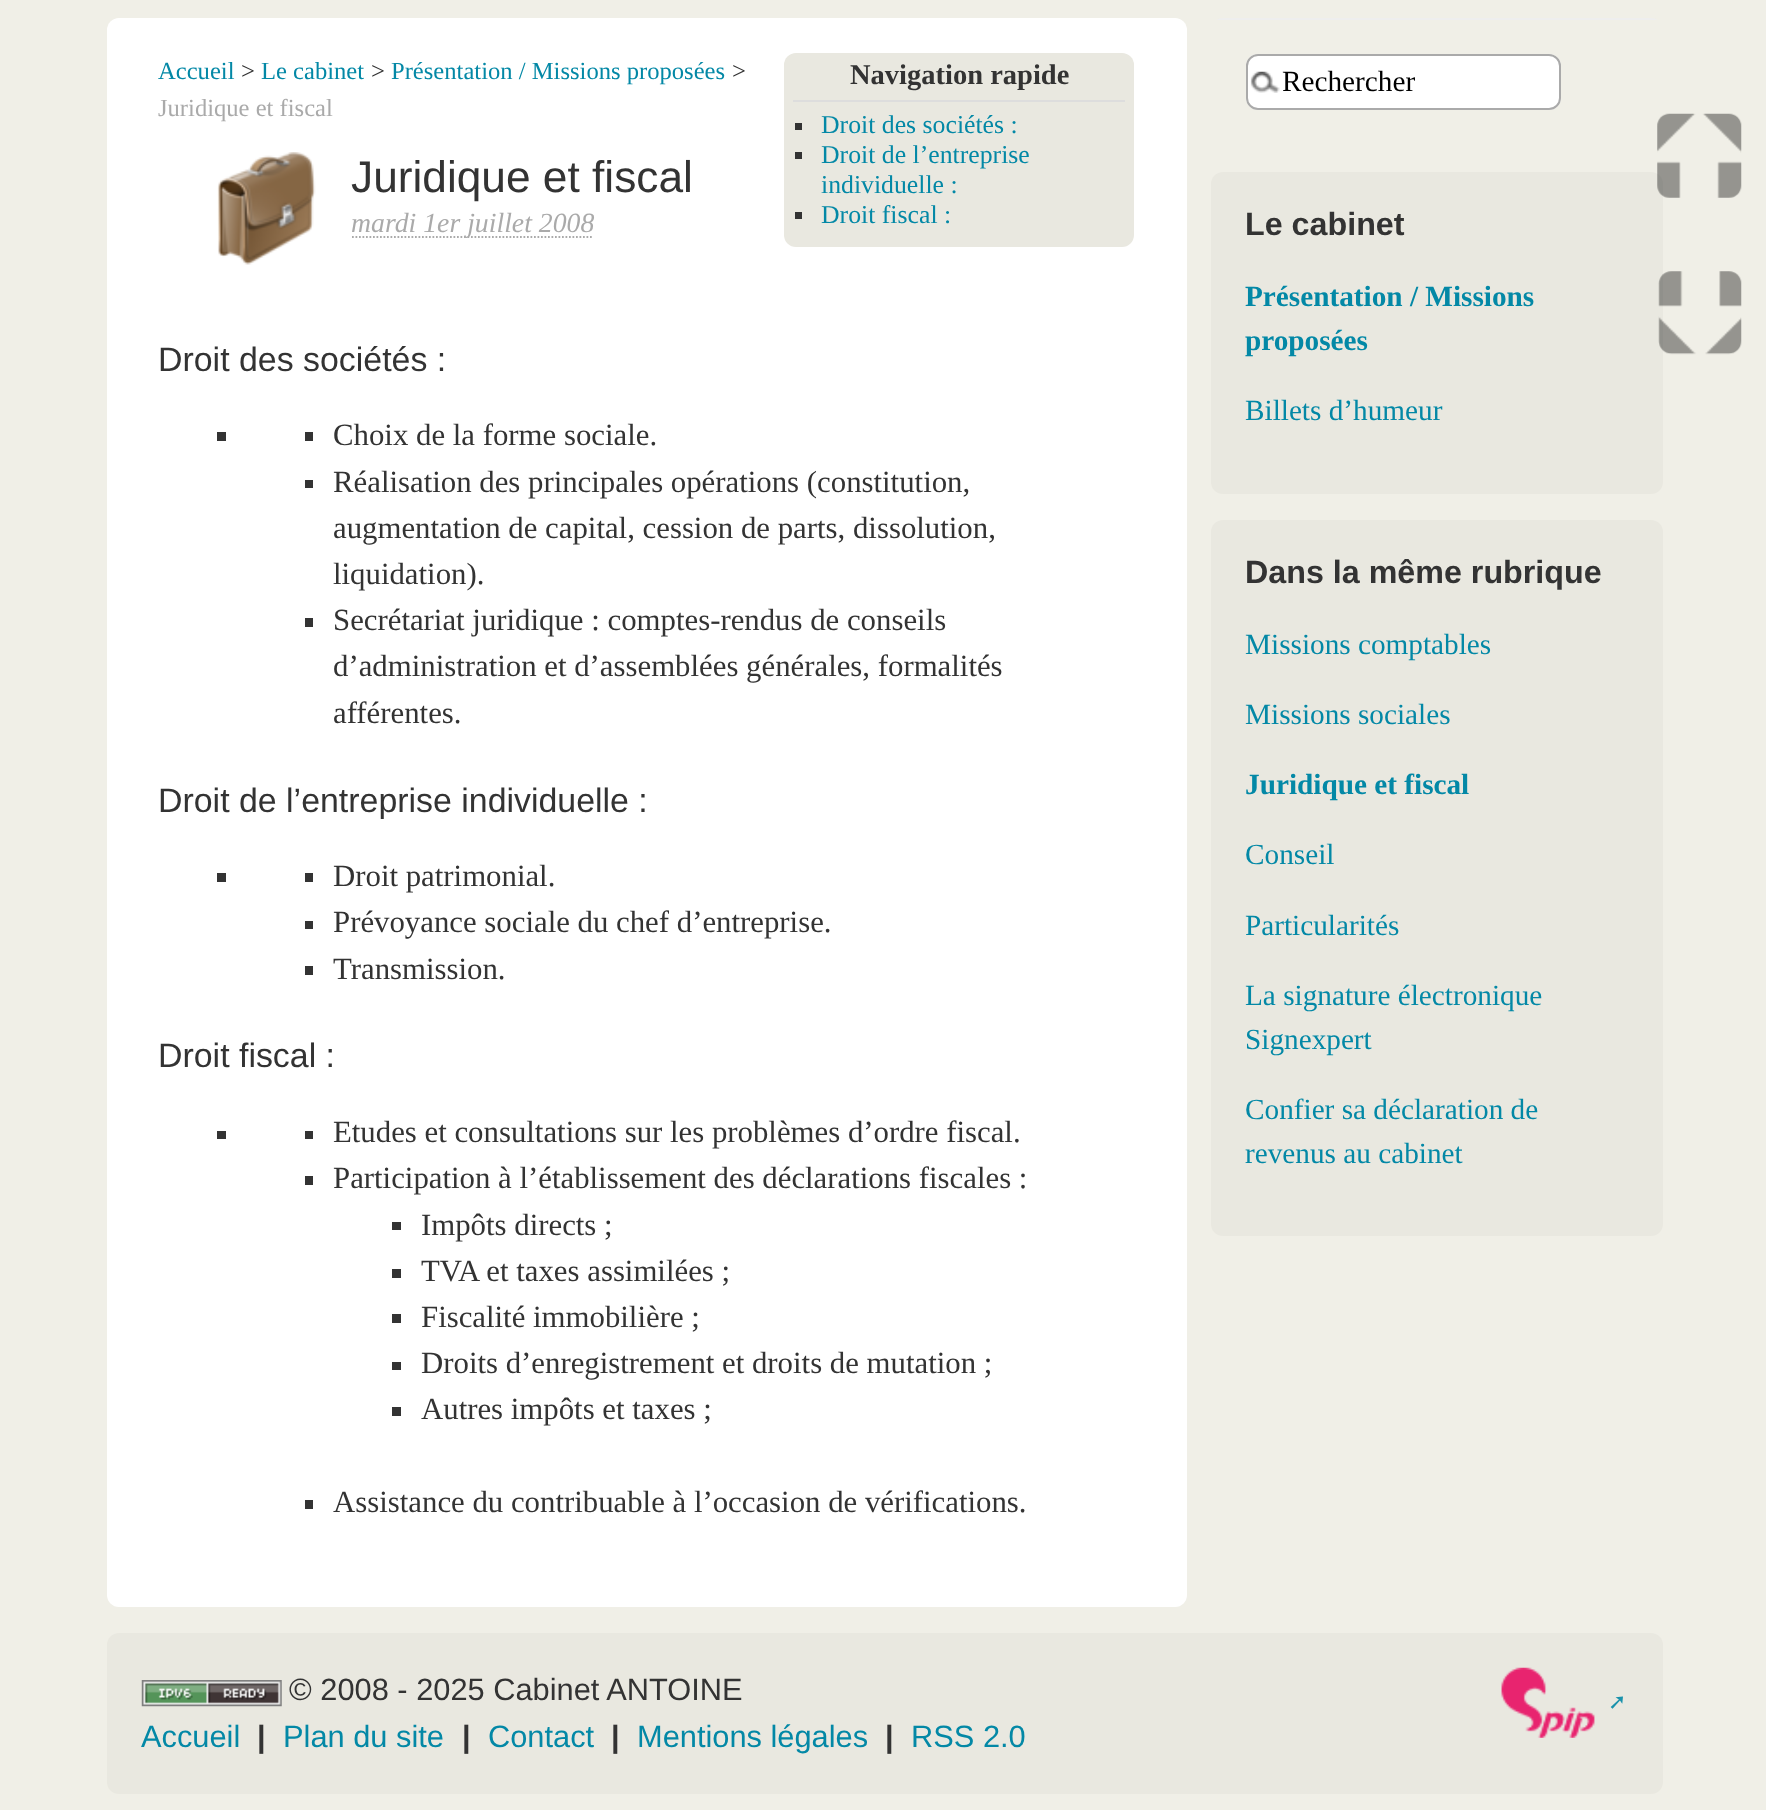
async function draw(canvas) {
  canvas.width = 1766;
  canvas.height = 1810;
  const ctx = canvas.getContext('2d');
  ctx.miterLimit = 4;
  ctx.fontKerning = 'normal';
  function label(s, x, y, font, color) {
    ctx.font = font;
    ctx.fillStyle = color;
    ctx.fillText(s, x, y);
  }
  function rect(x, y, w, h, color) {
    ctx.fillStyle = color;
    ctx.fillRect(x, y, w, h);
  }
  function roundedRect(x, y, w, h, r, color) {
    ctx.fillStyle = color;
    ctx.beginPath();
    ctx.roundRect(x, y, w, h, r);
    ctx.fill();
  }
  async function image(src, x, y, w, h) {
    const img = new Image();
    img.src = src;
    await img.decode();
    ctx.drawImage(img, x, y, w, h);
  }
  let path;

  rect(0, 0, 1766, 1810, '#f0efe7');
  roundedRect(107, 18, 1080, 1589, 12, '#fff');
  label('Accueil', 158, 79, '24.6px Liberation Serif', '#0388a6');
  label('>', 241, 79, '24.6px Liberation Serif', '#333');
  label('Le cabinet', 261, 79, '24.6px Liberation Serif', '#0388a6');
  label('>', 371, 79, '24.6px Liberation Serif', '#333');
  label('Présentation / Missions proposées', 391, 79, '24.6px Liberation Serif', '#0388a6');
  label('>', 732, 79, '24.6px Liberation Serif', '#333');
  label('Juridique et fiscal', 158, 116, '24.6px Liberation Serif', '#aaa');
  roundedRect(784, 53, 350, 194, 12, '#e9e8e0');
  rect(793, 100, 332, 2, '#ddd');
  label('Navigation rapide', 850, 84, 'bold 28.5px Liberation Serif', '#333');
  rect(795, 123, 7, 7, '#333');
  label('Droit des sociétés :', 821, 133, '25.75px Liberation Serif', '#0388a6');
  rect(795, 152, 7, 7, '#333');
  label('Droit de l’entreprise', 821, 163, '25.75px Liberation Serif', '#0388a6');
  label('individuelle :', 821, 193, '25.75px Liberation Serif', '#0388a6');
  rect(795, 212, 7, 7, '#333');
  label('Droit fiscal :', 821, 223, '25.75px Liberation Serif', '#0388a6');
  await image('assets/img1.png', 217, 152, 99, 113);
  label('Juridique et fiscal', 351, 192, '44.25px Liberation Sans', '#333');
  path = new Path2D('M352 237H593');
  ctx.strokeStyle = '#aaa';
  ctx.lineWidth = 1.8;
  ctx.setLineDash([1.75, 1.75]);
  ctx.stroke(path);
  label('mardi 1er juillet 2008', 351, 232, 'italic 27.75px Liberation Serif', '#aaa');
  label('Droit des sociétés :', 158, 371, '33.9px Liberation Sans', '#333');
  rect(217, 432, 9, 9, '#333');
  rect(305, 432, 8, 9, '#333');
  label('Choix de la forme sociale.', 333, 445, '30.8px Liberation Serif', '#333');
  rect(305, 480, 8, 8, '#333');
  label('Réalisation des principales opérations (constitution,', 333, 492, '30.8px Liberation Serif', '#333');
  label('augmentation de capital, cession de parts, dissolution,', 333, 538, '30.8px Liberation Serif', '#333');
  label('liquidation).', 333, 584, '30.8px Liberation Serif', '#333');
  rect(305, 618, 8, 9, '#333');
  label('Secrétariat juridique : comptes-rendus de conseils', 333, 630, '30.8px Liberation Serif', '#333');
  label('d’administration et d’assemblées générales, formalités', 333, 676, '30.8px Liberation Serif', '#333');
  label('afférentes.', 333, 723, '30.8px Liberation Serif', '#333');
  label('Droit de l’entreprise individuelle :', 158, 812, '33.9px Liberation Sans', '#333');
  rect(217, 873, 9, 9, '#333');
  rect(305, 873, 8, 9, '#333');
  label('Droit patrimonial.', 333, 886, '30.8px Liberation Serif', '#333');
  rect(305, 921, 8, 8, '#333');
  label('Prévoyance sociale du chef d’entreprise.', 333, 932, '30.8px Liberation Serif', '#333');
  rect(305, 966, 8, 9, '#333');
  label('Transmission.', 333, 979, '30.8px Liberation Serif', '#333');
  label('Droit fiscal :', 158, 1067, '33.9px Liberation Sans', '#333');
  rect(217, 1131, 9, 8, '#333');
  rect(305, 1131, 8, 8, '#333');
  label('Etudes et consultations sur les problèmes d’ordre fiscal.', 333, 1142, '30.8px Liberation Serif', '#333');
  rect(305, 1176, 8, 9, '#333');
  label('Participation à l’établissement des déclarations fiscales :', 333, 1188, '30.8px Liberation Serif', '#333');
  rect(392, 1222, 9, 8, '#333');
  label('Impôts directs ;', 421, 1235, '30.8px Liberation Serif', '#333');
  rect(392, 1269, 9, 9, '#333');
  label('TVA et taxes assimilées ;', 421, 1281, '30.8px Liberation Serif', '#333');
  rect(392, 1314, 9, 9, '#333');
  label('Fiscalité immobilière ;', 421, 1327, '30.8px Liberation Serif', '#333');
  rect(392, 1362, 9, 8, '#333');
  label('Droits d’enregistrement et droits de mutation ;', 421, 1373, '30.8px Liberation Serif', '#333');
  rect(392, 1407, 9, 9, '#333');
  label('Autres impôts et taxes ;', 421, 1419, '30.8px Liberation Serif', '#333');
  rect(305, 1500, 8, 9, '#333');
  label('Assistance du contribuable à l’occasion de vérifications.', 333, 1512, '30.8px Liberation Serif', '#333');
  ctx.save();
  ctx.beginPath();
  ctx.roundRect(1211, 18, 452, 1244, 12);
  ctx.clip();
  rect(1211, 18, 452, 2, '#eee');
  ctx.restore();
  roundedRect(1246, 54, 315, 56, 12, '#fff');
  await image('assets/img2.png', 1250, 71, 30, 22);
  ctx.beginPath();
  ctx.roundRect(1247, 55, 313, 54, 11);
  ctx.lineWidth = 2;
  ctx.setLineDash([]);
  ctx.stroke();
  label('Rechercher', 1282, 91, '29.25px Liberation Serif', '#000');
  roundedRect(1211, 172, 452, 322, 12, '#e9e8e0');
  label('Le cabinet', 1245, 235, 'bold 32.25px Liberation Sans', '#333');
  label('Présentation / Missions', 1245, 306, 'bold 29.25px Liberation Serif', '#0388a6');
  label('proposées', 1245, 350, 'bold 29.25px Liberation Serif', '#0388a6');
  label('Billets d’humeur', 1245, 420, '29.25px Liberation Serif', '#0388a6');
  roundedRect(1211, 520, 452, 716, 12, '#e9e8e0');
  label('Dans la même rubrique', 1245, 583, 'bold 32.25px Liberation Sans', '#333');
  label('Missions comptables', 1245, 654, '29.25px Liberation Serif', '#0388a6');
  label('Missions sociales', 1245, 724, '29.25px Liberation Serif', '#0388a6');
  label('Juridique et fiscal', 1245, 794, 'bold 29.25px Liberation Serif', '#0388a6');
  label('Conseil', 1245, 864, '29.25px Liberation Serif', '#0388a6');
  label('Particularités', 1245, 935, '29.25px Liberation Serif', '#0388a6');
  label('La signature électronique', 1245, 1005, '29.25px Liberation Serif', '#0388a6');
  label('Signexpert', 1245, 1049, '29.25px Liberation Serif', '#0388a6');
  label('Confier sa déclaration de', 1245, 1119, '29.25px Liberation Serif', '#0388a6');
  label('revenus au cabinet', 1245, 1163, '29.25px Liberation Serif', '#0388a6');
  roundedRect(107, 1633, 1556, 161, 12, '#e9e8e0');
  await image('assets/img3.png', 141, 1680, 141, 27);
  label('© 2008 - 2025 Cabinet ANTOINE', 289, 1700, '30.8px Liberation Sans', '#333');
  label('Accueil', 141, 1747, '30.8px Liberation Sans', '#0388a6');
  label('|', 257, 1747, 'bold 30.8px Liberation Sans', '#333');
  label('Plan du site', 283, 1747, '30.8px Liberation Sans', '#0388a6');
  label('|', 462, 1747, 'bold 30.8px Liberation Sans', '#333');
  label('Contact', 488, 1747, '30.8px Liberation Sans', '#0388a6');
  label('|', 611, 1747, 'bold 30.8px Liberation Sans', '#333');
  label('Mentions légales', 637, 1747, '30.8px Liberation Sans', '#0388a6');
  label('|', 885, 1747, 'bold 30.8px Liberation Sans', '#333');
  label('RSS 2.0', 911, 1747, '30.8px Liberation Sans', '#0388a6');
  await image('assets/img4.png', 1501, 1667, 94, 71);
  label('➚', 1608, 1709, '22px DejaVu Sans', '#1a92ac');
  await image('assets/img5.png', 1657, 113, 85, 85);
  await image('assets/img6.png', 1658, 271, 84, 84);
}

draw(document.querySelector('canvas'));
